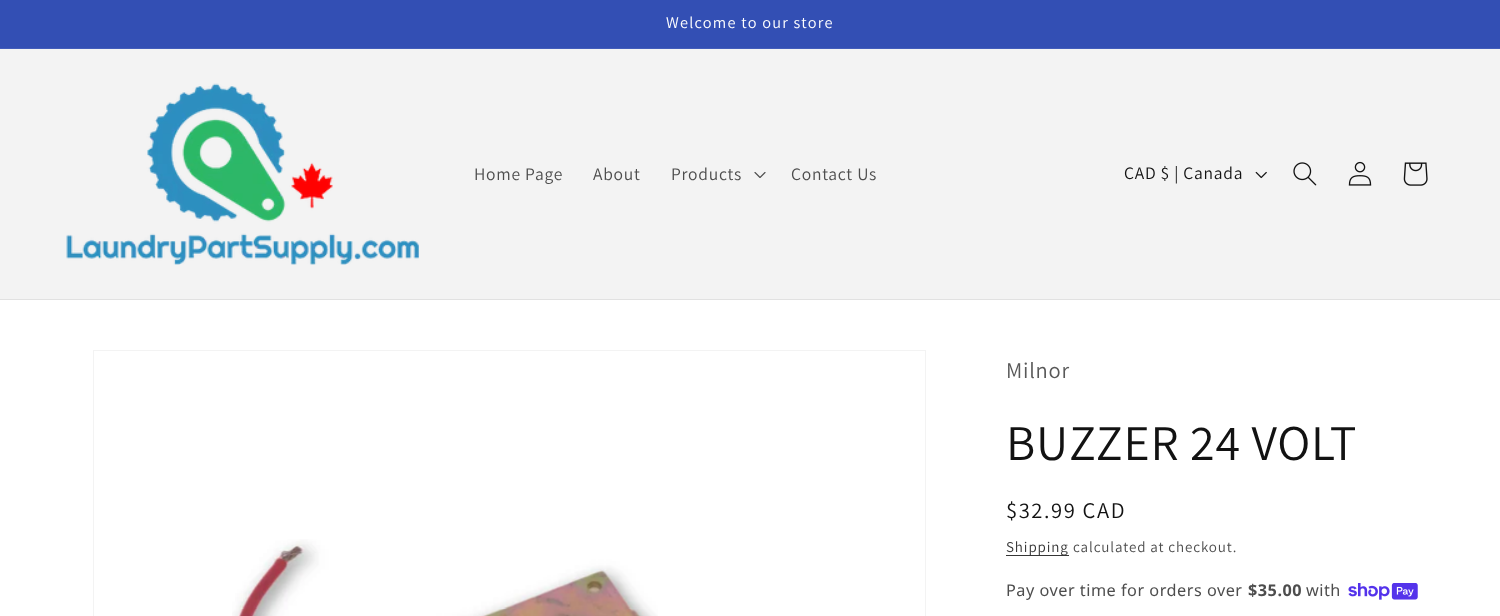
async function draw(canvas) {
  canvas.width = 1500;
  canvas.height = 616;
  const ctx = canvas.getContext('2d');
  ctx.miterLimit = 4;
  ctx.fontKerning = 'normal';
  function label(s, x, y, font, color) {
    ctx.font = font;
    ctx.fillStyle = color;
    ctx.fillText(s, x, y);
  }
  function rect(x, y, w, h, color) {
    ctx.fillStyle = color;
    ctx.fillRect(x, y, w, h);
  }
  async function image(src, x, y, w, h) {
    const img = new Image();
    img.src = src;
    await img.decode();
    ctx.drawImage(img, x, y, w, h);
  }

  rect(0, 0, 1500, 616, '#fff');
  rect(0, 0, 1500, 48, '#334fb4');
  rect(0, 48, 1500, 1, '#435dba');
  ctx.letterSpacing = '1.25px';
  label('Welcome to our store', 666, 28, '16.25px Assistant', '#fff');
  rect(0, 49, 1500, 250, '#f3f3f3');
  rect(0, 299, 1500, 1, '#e1e1e1');
  await image('assets/img1.png', 66, 83, 353, 182);
  ctx.letterSpacing = '0.75px';
  label('Home Page', 474, 180, '17.5px Assistant', '#4d4d4d');
  label('About', 593, 180, '17.5px Assistant', '#4d4d4d');
  label('Products', 671, 180, '17.5px Assistant', '#4d4d4d');
  await image('assets/img2.png', 754, 172, 12, 6);
  label('Contact Us', 791, 180, '17.5px Assistant', '#4d4d4d');
  label('CAD $ | Canada', 1124, 179, '17.5px Assistant', '#121212');
  await image('assets/img3.png', 1255, 171, 12, 8);
  await image('assets/img4.png', 1293, 162, 24, 24);
  await image('assets/img5.png', 1348, 161, 24, 25);
  await image('assets/img6.png', 1403, 162, 25, 24);
  ctx.strokeStyle = '#f3f3f3';
  ctx.strokeRect(93.5, 350.5, 832, 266);
  await image('assets/img7.png', 232, 539, 426, 77);
  label('Milnor', 1006, 378, '22.5px Assistant', '#595959');
  label('BUZZER 24 VOLT', 1006, 460, '50px Assistant', '#121212');
  ctx.letterSpacing = '1.6px';
  label('$32.99 CAD', 1006, 518, '22.5px Assistant', '#121212');
  rect(1006, 555, 63, 1, '#363636');
  ctx.letterSpacing = '0.9px';
  label('Shipping', 1006, 552, '15px Assistant', '#353535');
  label('calculated at checkout.', 1073, 552, '15px Assistant', '#4d4d4d');
  ctx.letterSpacing = '0.5px';
  label('Pay over time for orders over', 1006, 596, '16.25px Noto Sans', '#4d4d4d');
  label('$35.00', 1248, 596, 'bold 16.25px Noto Sans', '#4d4d4d');
  label('with', 1306, 596, '16.25px Noto Sans', '#4d4d4d');
  await image('assets/img8.png', 1348, 583, 70, 17);
}

draw(document.querySelector('canvas'));
